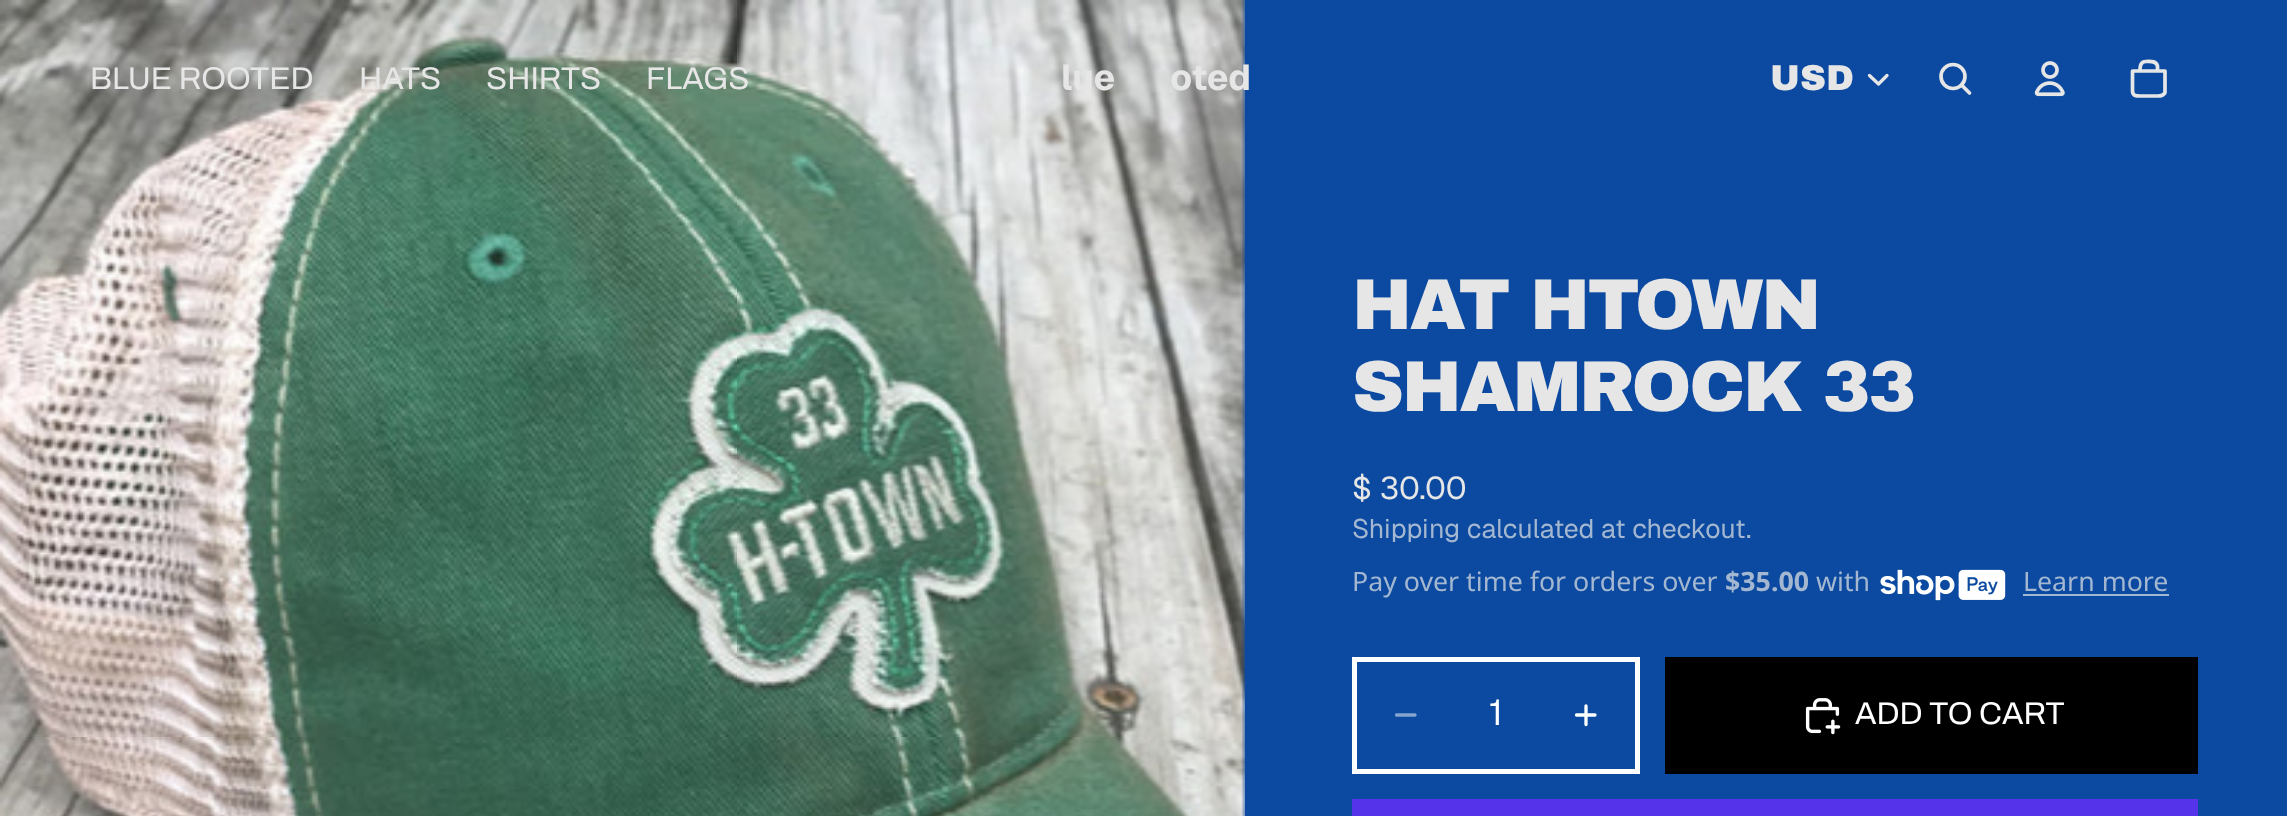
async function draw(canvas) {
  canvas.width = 2287;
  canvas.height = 816;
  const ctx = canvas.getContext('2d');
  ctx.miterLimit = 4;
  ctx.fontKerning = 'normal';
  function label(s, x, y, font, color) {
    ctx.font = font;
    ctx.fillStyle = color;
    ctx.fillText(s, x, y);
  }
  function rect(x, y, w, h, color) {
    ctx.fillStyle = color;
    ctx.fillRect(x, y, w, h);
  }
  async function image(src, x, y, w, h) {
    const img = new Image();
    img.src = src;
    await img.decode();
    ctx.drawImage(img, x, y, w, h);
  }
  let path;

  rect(0, 0, 2287, 816, '#0b4aa0');
  await image('assets/img2.png', 0, 0, 1245, 816);
  label('BLUE ROOTED', 90, 89, '31.5px Archivo', '#e6e6e6');
  label('HATS', 359, 89, '31.5px Archivo', '#e6e6e6');
  label('SHIRTS', 486, 89, '31.5px Archivo', '#e6e6e6');
  label('FLAGS', 646, 89, '31.5px Archivo', '#e6e6e6');
  label('lue', 1061, 90, 'bold 36px Geist', '#e6e6e6');
  label('oted', 1170, 90, 'bold 36px Geist', '#e6e6e6');
  label('USD', 1770, 90, '36px Archivo Black', '#e6e6e6');
  path = new Path2D('M1887 75.5L1878.5 84L1869.5 75.5');
  ctx.strokeStyle = '#e6e6e6';
  ctx.lineWidth = 3.3;
  ctx.lineCap = 'round';
  ctx.lineJoin = 'round';
  ctx.stroke(path);
  ctx.beginPath();
  ctx.arc(1953, 76.5, 12, 0, 2 * Math.PI);
  ctx.lineWidth = 3.7;
  ctx.stroke();
  path = new Path2D('M1961.5 85L1969.5 93');
  ctx.stroke(path);
  await image('assets/img1.png', 2034, 61, 31, 36);
  path = new Path2D('M2132.5 71H2165V92.5C2163.5 96.5 2159.5 96 2156 96H2141.5C2137.5 96 2132.5 96.5 2132.5 91ZM2146 61.5C2150 61.5 2156 60.5 2157.5 66V71H2140C2140 67 2140 61.5 2146 61.5');
  ctx.stroke(path);
  ctx.letterSpacing = '-2.25px';
  label('HAT HTOWN', 1352, 329, '72px Archivo Black', '#e6e6e6');
  label('SHAMROCK 33', 1352, 411, '72px Archivo Black', '#e6e6e6');
  ctx.letterSpacing = '0px';
  label('$ 30.00', 1352, 499, '31.5px Geist', '#e6e6e6');
  label('Shipping calculated at checkout.', 1352, 538, '26.75px Geist', '#a4b7d1');
  label('Pay over time for orders over', 1352, 591, '26.75px Noto Sans', '#a4b7d1');
  label('$35.00', 1725, 591, 'bold 26.75px Noto Sans', '#a4b7d1');
  label('with', 1816, 591, '26.75px Noto Sans', '#a4b7d1');
  await image('assets/img3.png', 1880, 569, 126, 32);
  label('Learn more', 2023, 591, '26.75px Noto Sans', '#a4b7d1');
  rect(2023, 594, 146, 2, '#a4b7d1');
  ctx.strokeStyle = '#fff';
  ctx.lineWidth = 5;
  ctx.lineJoin = 'miter';
  ctx.strokeRect(1354.5, 659.5, 283, 112);
  path = new Path2D('M1396.5 715H1415');
  ctx.strokeStyle = '#85a5d0';
  ctx.lineWidth = 3.3;
  ctx.stroke(path);
  label('1', 1489, 725, '36px Geist', '#fff');
  path = new Path2D('M1576.5 715H1595M1586 706V724.5');
  ctx.strokeStyle = '#fff';
  ctx.stroke(path);
  rect(1665, 657, 533, 117, '#000');
  await image('assets/img4.png', 1805, 698, 36, 37);
  label('ADD TO CART', 1855, 724, '31.5px Archivo', '#fff');
  rect(1352, 799, 846, 17, '#5433eb');
}

draw(document.querySelector('canvas'));
